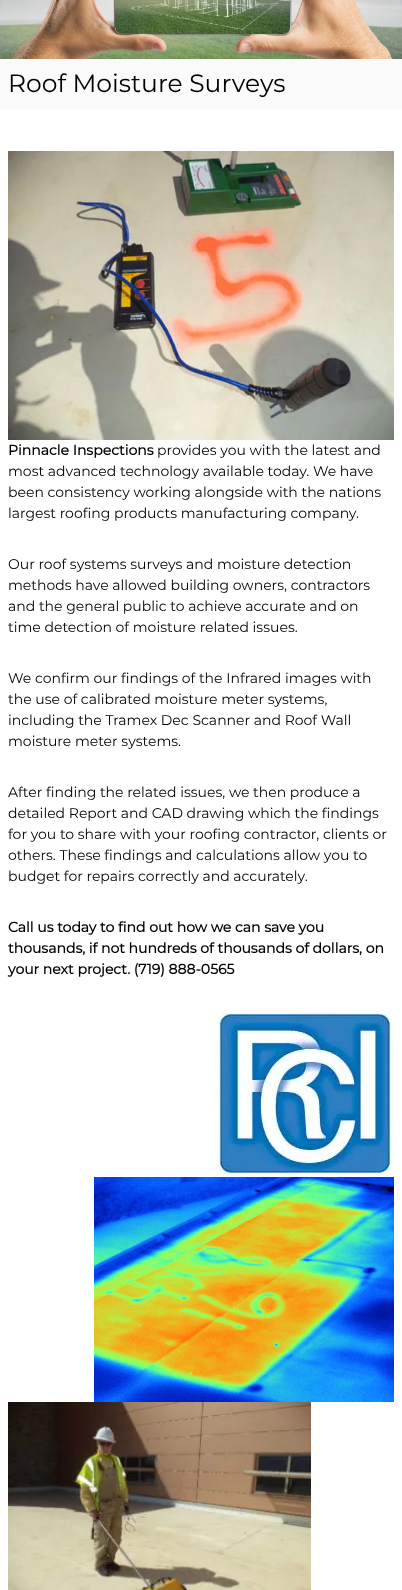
async function draw(canvas) {
  canvas.width = 402;
  canvas.height = 1590;
  const ctx = canvas.getContext('2d');
  ctx.miterLimit = 4;
  ctx.fontKerning = 'normal';
  function label(s, x, y, font, color) {
    ctx.font = font;
    ctx.fillStyle = color;
    ctx.fillText(s, x, y);
  }
  function rect(x, y, w, h, color) {
    ctx.fillStyle = color;
    ctx.fillRect(x, y, w, h);
  }
  async function image(src, x, y, w, h) {
    const img = new Image();
    img.src = src;
    await img.decode();
    ctx.drawImage(img, x, y, w, h);
  }

  rect(0, 0, 402, 1590, '#fff');
  await image('assets/img1.png', 0, 0, 402, 59);
  rect(0, 59, 402, 50, '#fafafa');
  label('Roof Moisture Surveys', 8, 92, '25px Montserrat', '#000');
  await image('assets/img2.png', 8, 151, 386, 289);
  label('Pinnacle Inspections', 8, 455, 'bold 14px Montserrat', '#000');
  label('provides you with the latest and', 157, 455, '14px Montserrat', '#000');
  label('most advanced technology available today. We have', 8, 476, '14px Montserrat', '#000');
  label('been consistency working alongside with the nations', 8, 497, '14px Montserrat', '#000');
  label('largest roofing products manufacturing company.', 8, 518, '14px Montserrat', '#000');
  label('Our roof systems surveys and moisture detection', 8, 569, '14px Montserrat', '#000');
  label('methods have allowed building owners, contractors', 8, 590, '14px Montserrat', '#000');
  label('and the general public to achieve accurate and on', 8, 611, '14px Montserrat', '#000');
  label('time detection of moisture related issues.', 8, 632, '14px Montserrat', '#000');
  label('We confirm our findings of the Infrared images with', 8, 683, '14px Montserrat', '#000');
  label('the use of calibrated moisture meter systems,', 8, 704, '14px Montserrat', '#000');
  label('including the Tramex Dec Scanner and Roof Wall', 8, 725, '14px Montserrat', '#000');
  label('moisture meter systems.', 8, 746, '14px Montserrat', '#000');
  label('After finding the related issues, we then produce a', 8, 797, '14px Montserrat', '#000');
  label('detailed Report and CAD drawing which the findings', 8, 818, '14px Montserrat', '#000');
  label('for you to share with your roofing contractor, clients or', 8, 839, '14px Montserrat', '#000');
  label('others. These findings and calculations allow you to', 8, 860, '14px Montserrat', '#000');
  label('budget for repairs correctly and accurately.', 8, 881, '14px Montserrat', '#000');
  label('Call us today to find out how we can save you', 8, 932, 'bold 14px Montserrat', '#000');
  label('thousands, if not hundreds of thousands of dollars, on', 8, 953, 'bold 14px Montserrat', '#000');
  label('your next project. (719) 888-0565', 8, 974, 'bold 14px Montserrat', '#000');
  await image('assets/img3.png', 215, 1010, 177, 167);
  await image('assets/img4.png', 94, 1177, 300, 225);
  await image('assets/img5.png', 8, 1402, 303, 188);
}

draw(document.querySelector('canvas'));
